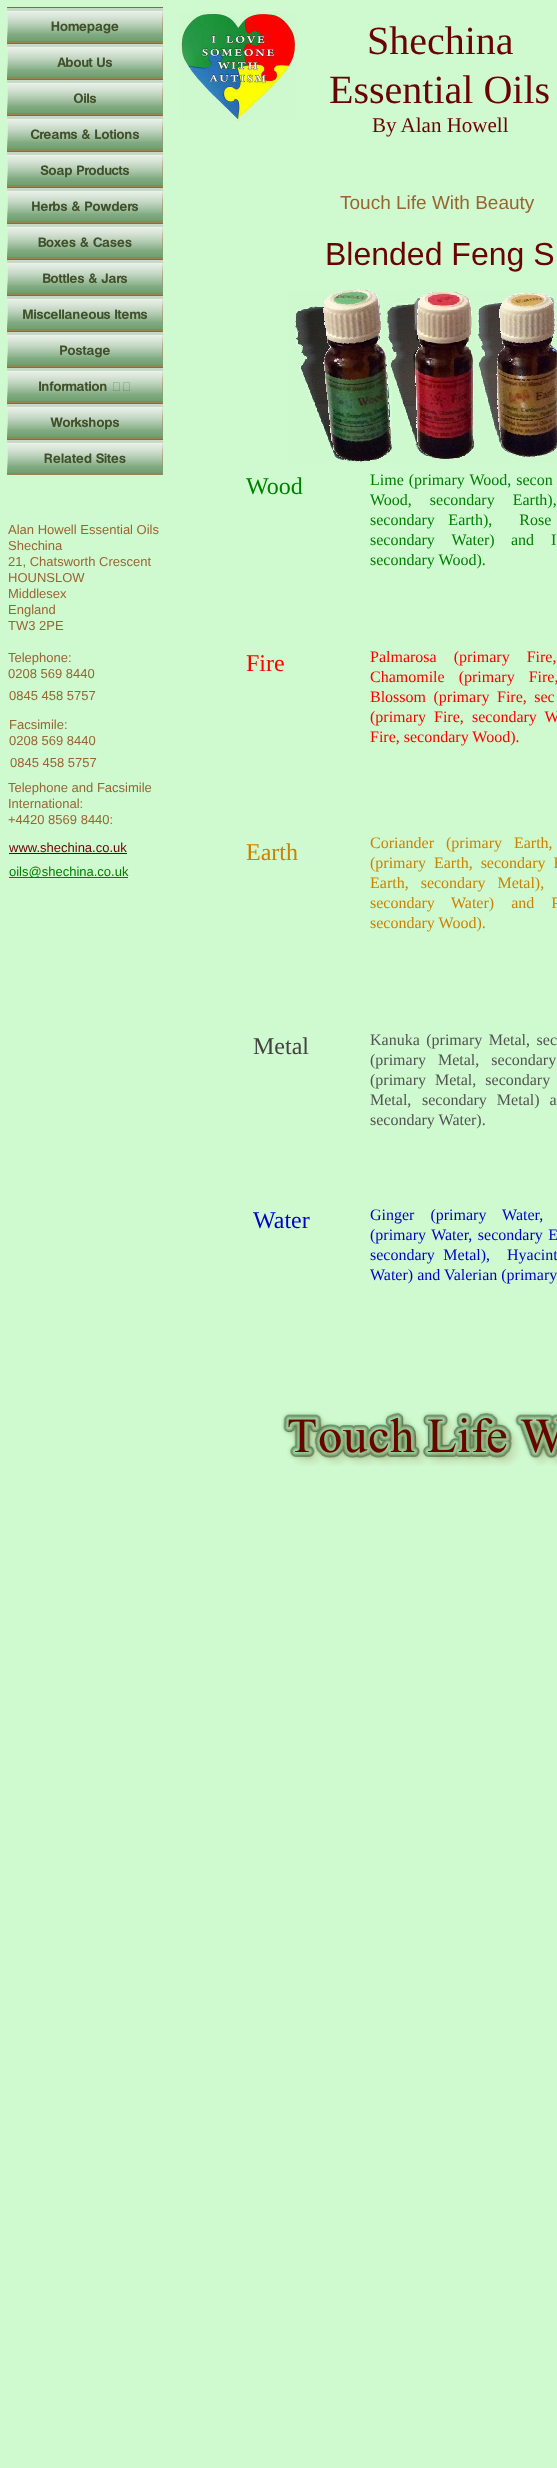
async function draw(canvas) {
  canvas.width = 557;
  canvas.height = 2468;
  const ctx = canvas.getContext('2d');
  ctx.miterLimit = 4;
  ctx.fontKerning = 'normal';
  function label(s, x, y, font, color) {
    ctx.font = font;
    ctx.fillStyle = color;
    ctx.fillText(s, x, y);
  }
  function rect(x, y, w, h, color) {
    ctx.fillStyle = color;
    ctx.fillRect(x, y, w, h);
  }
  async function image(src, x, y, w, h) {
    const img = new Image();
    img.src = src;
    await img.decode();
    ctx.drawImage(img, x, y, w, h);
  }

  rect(0, 0, 557, 2468, '#cff9cf');
  await image('assets/img1.png', 7, 7, 156, 36);
  await image('assets/img2.png', 179, 9, 118, 112);
  label('Shechina', 367, 54, '40px Liberation Serif', '#6a0303');
  label('Essential Oils', 329, 103, '40px Liberation Serif', '#6a0303');
  label('By Alan Howell', 372, 132, '21px Liberation Serif', '#6a0303');
  await image('assets/img3.png', 7, 43, 156, 36);
  await image('assets/img4.png', 7, 79, 156, 36);
  await image('assets/img5.png', 7, 115, 156, 36);
  await image('assets/img6.png', 7, 151, 156, 36);
  await image('assets/img7.png', 7, 187, 156, 36);
  label('Touch Life With Beauty', 340, 209, '19px Liberation Sans', '#963');
  await image('assets/img8.png', 7, 223, 156, 36);
  label('Blended Feng S', 325, 265, '32px Liberation Sans', '#6a0303');
  await image('assets/img9.png', 7, 259, 156, 36);
  await image('assets/img11.png', 289, 290, 268, 173);
  await image('assets/img10.png', 323, 289, 68, 173);
  await image('assets/img12.png', 7, 295, 156, 36);
  await image('assets/img13.png', 415, 292, 59, 167);
  await image('assets/img14.png', 496, 293, 61, 164);
  await image('assets/img15.png', 7, 331, 156, 36);
  await image('assets/img16.png', 7, 367, 156, 36);
  await image('assets/img17.png', 7, 403, 156, 36);
  await image('assets/img18.png', 7, 439, 156, 36);
  label('Wood', 246, 494, '24px Liberation Serif', '#008000');
  ctx.wordSpacing = '1px';
  label('Lime (primary Wood, secon', 370, 485, '16px Liberation Serif', '#008000');
  ctx.wordSpacing = '14px';
  label('Wood, secondary Earth),', 370, 505, '16px Liberation Serif', '#008000');
  ctx.wordSpacing = '9.5px';
  label('secondary Earth),  Rose', 370, 525, '16px Liberation Serif', '#008000');
  ctx.wordSpacing = '13px';
  label('secondary Water)', 370, 545, '16px Liberation Serif', '#008000');
  label('and I', 511, 545, '16px Liberation Serif', '#008000');
  ctx.wordSpacing = '0px';
  label('secondary Wood).', 370, 565, '16px Liberation Serif', '#008000');
  label('Alan Howell Essential Oils', 8, 534, '13px Liberation Sans', '#963');
  label('Shechina', 8, 550, '13px Liberation Sans', '#963');
  label('21, Chatsworth Crescent', 8, 566, '13px Liberation Sans', '#963');
  label('HOUNSLOW', 8, 582, '13px Liberation Sans', '#963');
  label('Middlesex', 8, 598, '13px Liberation Sans', '#963');
  label('England', 8, 614, '13px Liberation Sans', '#963');
  label('TW3 2PE', 8, 630, '13px Liberation Sans', '#963');
  label('Telephone:', 8, 662, '13px Liberation Sans', '#963');
  label('0208 569 8440', 8, 678, '13px Liberation Sans', '#963');
  label('Fire', 246, 671, '24px Liberation Serif', '#f00');
  ctx.wordSpacing = '13px';
  label('Palmarosa (primary Fire,', 370, 662, '16px Liberation Serif', '#f00');
  ctx.wordSpacing = '10px';
  label('Chamomile (primary Fire,', 370, 682, '16px Liberation Serif', '#f00');
  ctx.wordSpacing = '3.5px';
  label('Blossom (primary Fire, sec', 370, 702, '16px Liberation Serif', '#f00');
  ctx.wordSpacing = '4px';
  label('(primary Fire,', 370, 722, '16px Liberation Serif', '#f00');
  label('secondary W', 472, 722, '16px Liberation Serif', '#f00');
  ctx.wordSpacing = '0px';
  label('Fire, secondary Wood).', 370, 742, '16px Liberation Serif', '#f00');
  label('0845 458 5757', 9, 700, '13px Liberation Sans', '#963');
  label('Facsimile:', 9, 729, '13px Liberation Sans', '#963');
  label('0208 569 8440', 9, 745, '13px Liberation Sans', '#963');
  label('0845 458 5757', 10, 767, '13px Liberation Sans', '#963');
  label('Telephone and Facsimile', 8, 792, '13px Liberation Sans', '#963');
  label('International:', 8, 808, '13px Liberation Sans', '#963');
  label('+4420 8569 8440:', 8, 824, '13px Liberation Sans', '#963');
  label('www.shechina.co.uk', 9, 852, '13px Liberation Sans', '#6a0303');
  rect(9, 853, 118, 1, '#6a0303');
  label('Earth', 246, 860, '24px Liberation Serif', '#cc8200');
  ctx.wordSpacing = '8px';
  label('Coriander (primary Earth,', 370, 848, '16px Liberation Serif', '#cc8200');
  ctx.wordSpacing = '4px';
  label('(primary Earth, secondary E', 370, 868, '16px Liberation Serif', '#cc8200');
  ctx.wordSpacing = '8px';
  label('Earth, secondary Metal),', 370, 888, '16px Liberation Serif', '#cc8200');
  ctx.wordSpacing = '0px';
  label('secondary', 370, 908, '16px Liberation Serif', '#cc8200');
  ctx.wordSpacing = '13px';
  label('Water) and P', 451, 908, '16px Liberation Serif', '#cc8200');
  ctx.wordSpacing = '0px';
  label('secondary Wood).', 370, 928, '16px Liberation Serif', '#cc8200');
  rect(9, 877, 119, 1, '#008000');
  label('oils@shechina.co.uk', 9, 876, '13px Liberation Sans', '#008000');
  label('Metal', 253, 1054, '24px Liberation Serif', '#434343');
  ctx.wordSpacing = '2.5px';
  label('Kanuka (primary Metal, sec', 370, 1045, '16px Liberation Serif', '#535353');
  ctx.wordSpacing = '8px';
  label('(primary Metal, secondary', 370, 1065, '16px Liberation Serif', '#535353');
  ctx.wordSpacing = '5px';
  label('(primary Metal, secondary', 370, 1085, '16px Liberation Serif', '#535353');
  ctx.wordSpacing = '0px';
  label('Metal,', 370, 1105, '16px Liberation Serif', '#535353');
  ctx.wordSpacing = '6px';
  label('secondary Metal) a', 422, 1105, '16px Liberation Serif', '#535353');
  ctx.wordSpacing = '0px';
  label('secondary Water).', 370, 1125, '16px Liberation Serif', '#535353');
  label('Water', 253, 1228, '24px Liberation Serif', '#0000cb');
  ctx.wordSpacing = '12px';
  label('Ginger (primary Water,', 370, 1220, '16px Liberation Serif', '#0000cb');
  ctx.wordSpacing = '1.5px';
  label('(primary Water, secondary E', 370, 1240, '16px Liberation Serif', '#0000cb');
  ctx.wordSpacing = '4.5px';
  label('secondary Metal),  Hyacint', 370, 1260, '16px Liberation Serif', '#0000cb');
  ctx.wordSpacing = '0px';
  label('Water) and Valerian (primary', 370, 1280, '16px Liberation Serif', '#0000cb');
  await image('assets/img19.png', 281, 1411, 276, 55);
}

draw(document.querySelector('canvas'));
